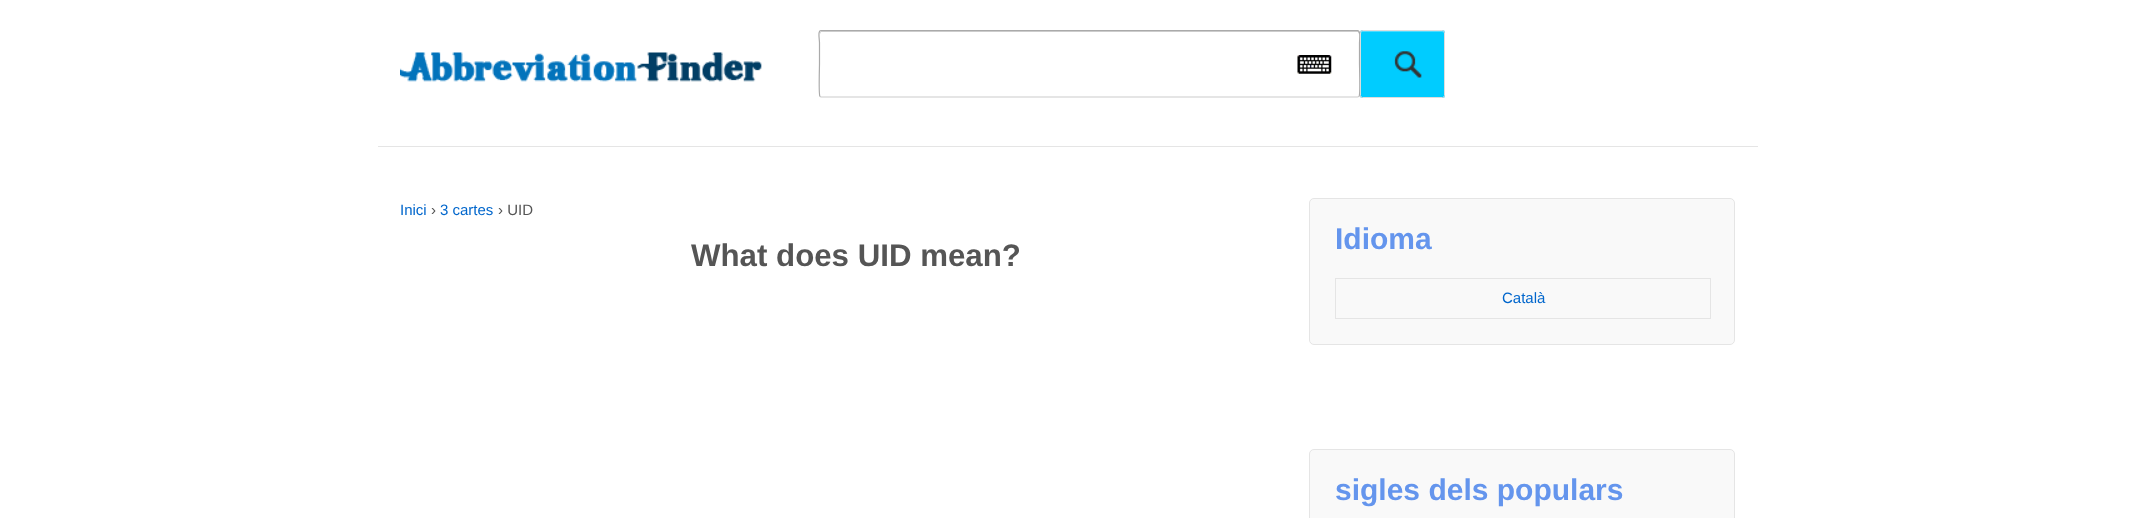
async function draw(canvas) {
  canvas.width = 2134;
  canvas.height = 518;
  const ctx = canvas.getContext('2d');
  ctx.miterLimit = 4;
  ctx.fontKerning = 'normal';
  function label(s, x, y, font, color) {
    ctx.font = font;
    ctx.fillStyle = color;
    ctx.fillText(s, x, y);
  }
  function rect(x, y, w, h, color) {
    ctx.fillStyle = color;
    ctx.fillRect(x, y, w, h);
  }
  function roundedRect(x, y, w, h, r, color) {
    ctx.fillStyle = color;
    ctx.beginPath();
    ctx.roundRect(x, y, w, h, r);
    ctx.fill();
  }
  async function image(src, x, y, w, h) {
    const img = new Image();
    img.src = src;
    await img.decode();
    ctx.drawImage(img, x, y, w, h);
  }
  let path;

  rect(0, 0, 2134, 518, '#fff');
  await image('assets/img1.png', 400, 52, 362, 30);
  ctx.fillStyle = '#ccc';
  path = new Path2D('M821 32H1358L1359 34V31H1358H821C820 31 820 33 820 34Z');
  ctx.fill(path);
  path = new Path2D('M1359 96.5L1357.5 97H821L820 96.5');
  ctx.strokeStyle = '#ccc';
  ctx.lineWidth = 1.2;
  ctx.stroke(path);
  path = new Path2D('M820 96.5C818.5 94.5 819.5 67.5 819.5 64V43C819.5 39 817.5 30.5 821 30.5H1357.5C1361 30.5 1359.5 39 1359.5 43V64C1359.5 67.5 1360.5 94.5 1359 96.5');
  ctx.strokeStyle = '#aaa';
  ctx.stroke(path);
  roundedRect(1360, 30, 85, 68, 2.5, '#0cf');
  await image('assets/img2.png', 1394, 51, 28, 27);
  ctx.fillStyle = '#ffffff4d';
  path = new Path2D('M1362 32H1442C1443 32 1444 33 1444 34C1444 27 1439 31 1430 31H1376C1366 31 1361 27 1361 34Z');
  ctx.fill(path);
  ctx.beginPath();
  ctx.roundRect(1360.5, 30.5, 84, 67, 2);
  ctx.strokeStyle = '#ddd';
  ctx.lineWidth = 1;
  ctx.stroke();
  await image('assets/img3.png', 1297, 55, 35, 19);
  rect(378, 146, 1380, 1, '#e5e5e5');
  label('Inici', 400, 215, '15px Liberation Sans', '#06c');
  label('›', 431, 215, '15px Liberation Sans', '#555');
  label('3 cartes', 440, 215, '15px Liberation Sans', '#06c');
  label('› UID', 498, 215, '15px Liberation Sans', '#555');
  label('What does UID mean?', 691, 266, 'bold 31.25px Liberation Sans', '#555');
  ctx.fillStyle = '#f9f9f9';
  ctx.beginPath();
  ctx.roundRect(1309.5, 198.5, 425, 146, 4.5);
  ctx.fill();
  ctx.strokeStyle = '#e5e5e5';
  ctx.stroke();
  label('Idioma', 1335, 249, 'bold 30px Liberation Sans', '#6495ed');
  ctx.strokeRect(1335.5, 278.5, 375, 40);
  label('Català', 1502, 303, '15px Liberation Sans', '#06c');
  ctx.fillStyle = '#f9f9f9';
  ctx.beginPath();
  ctx.roundRect(1309.5, 449.5, 425, 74, 4.5);
  ctx.fill();
  ctx.stroke();
  label('sigles dels populars', 1335, 500, 'bold 30px Liberation Sans', '#6495ed');
}

draw(document.querySelector('canvas'));
